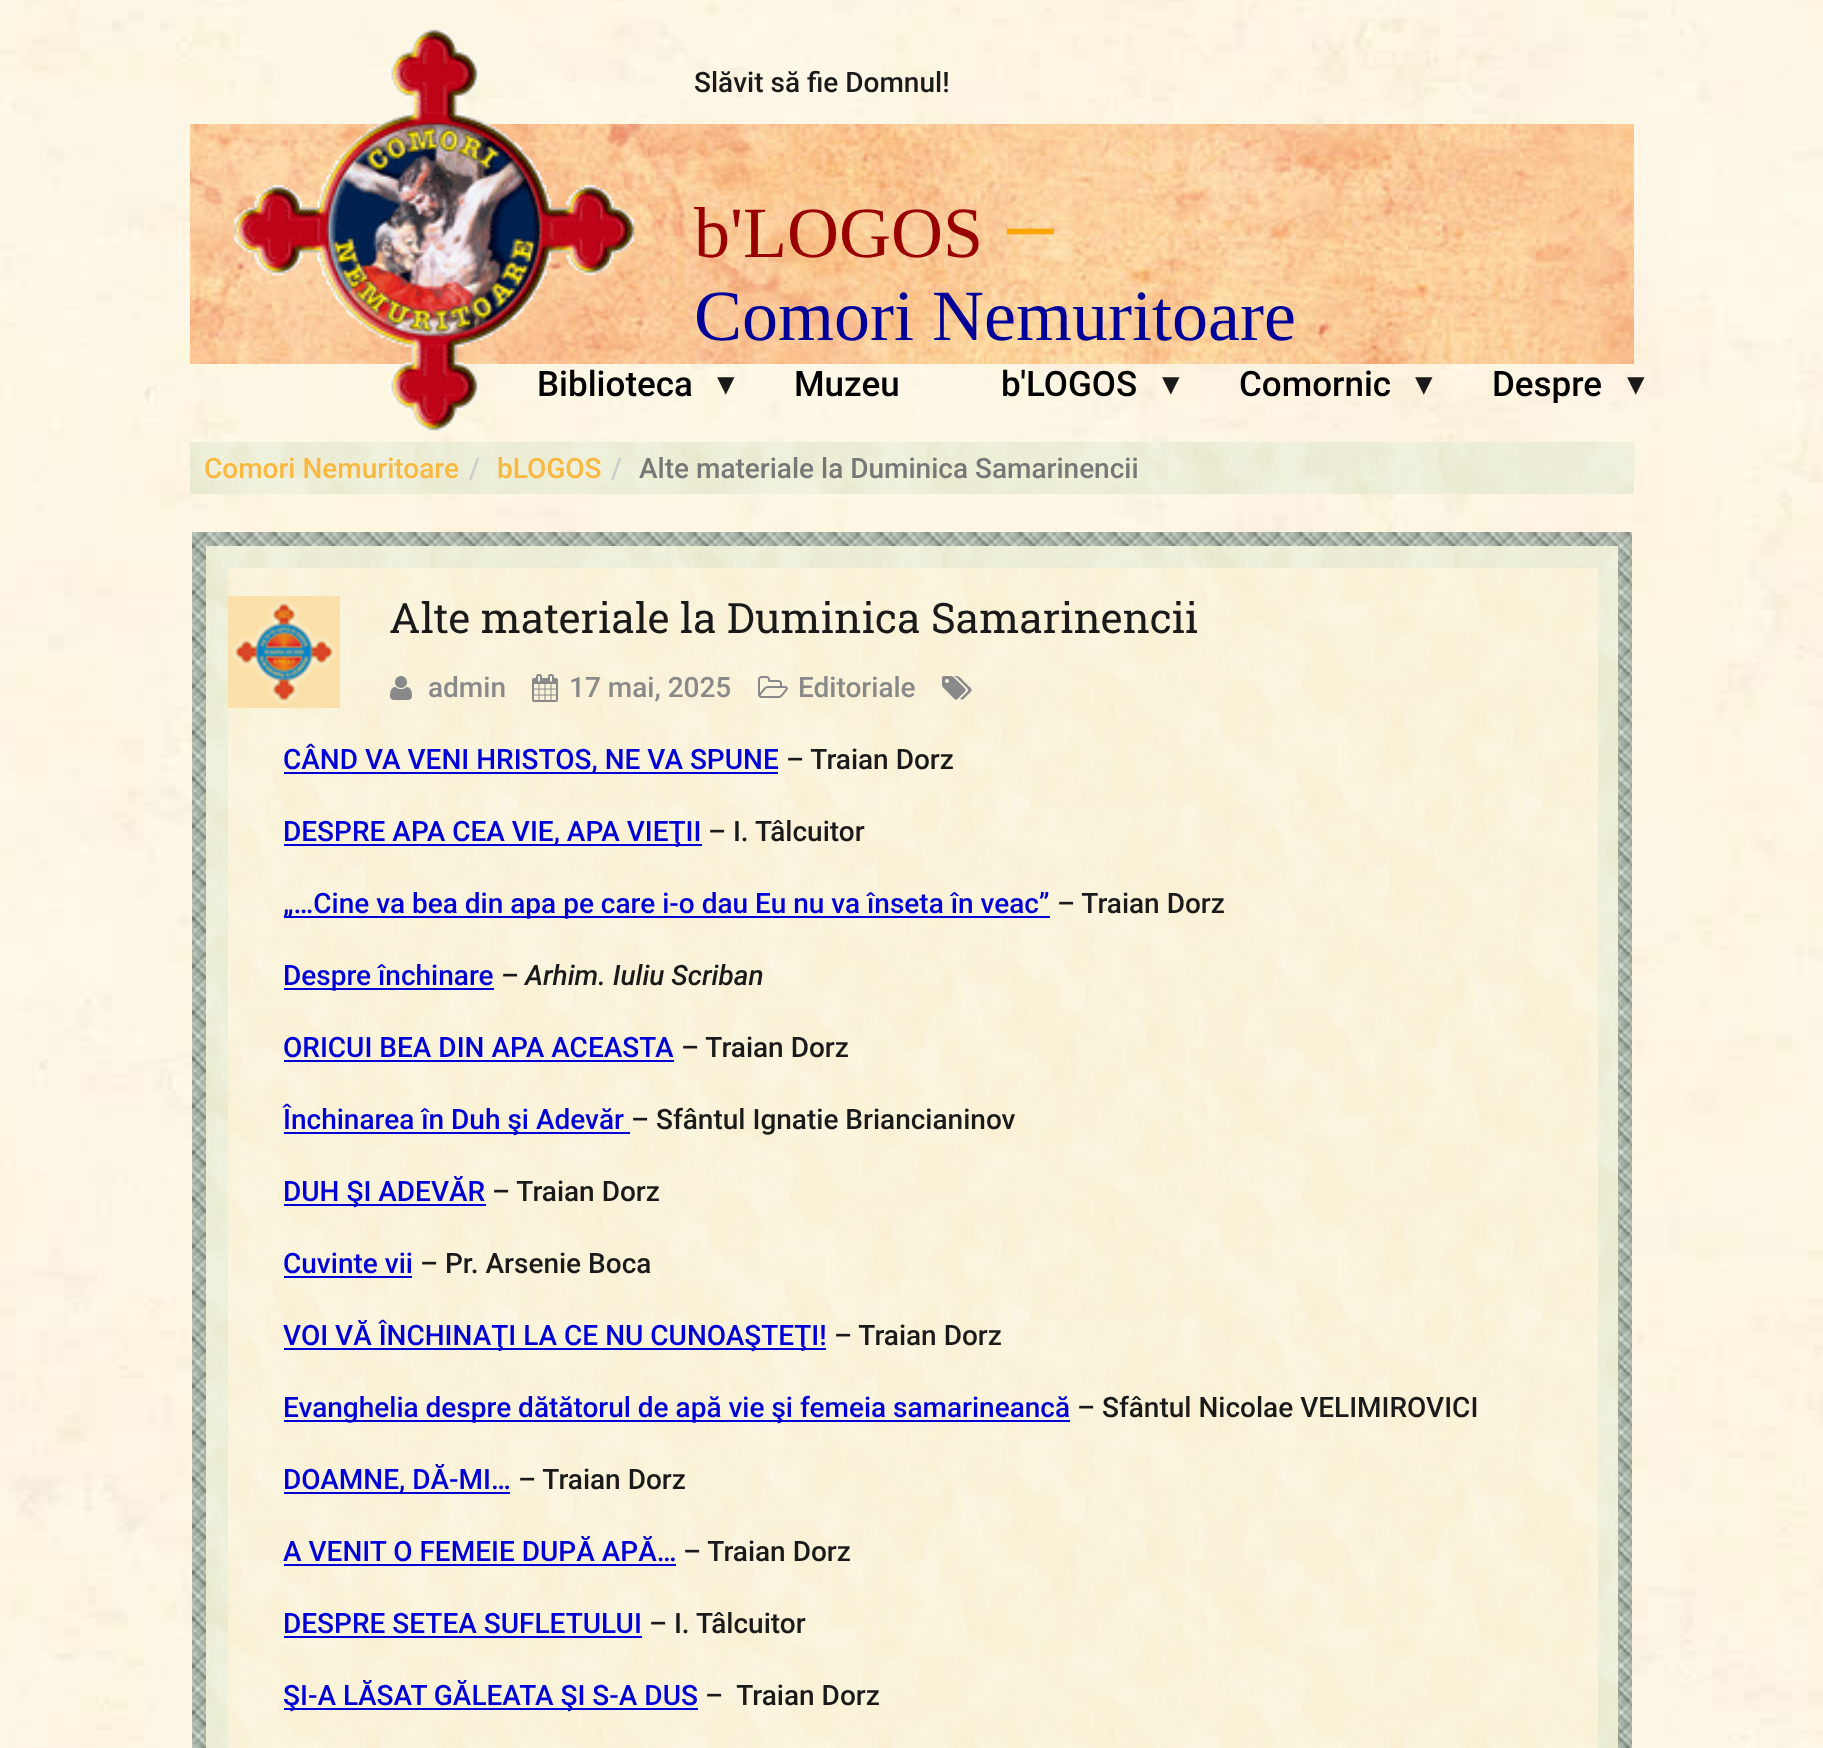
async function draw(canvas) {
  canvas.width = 1823;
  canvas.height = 1748;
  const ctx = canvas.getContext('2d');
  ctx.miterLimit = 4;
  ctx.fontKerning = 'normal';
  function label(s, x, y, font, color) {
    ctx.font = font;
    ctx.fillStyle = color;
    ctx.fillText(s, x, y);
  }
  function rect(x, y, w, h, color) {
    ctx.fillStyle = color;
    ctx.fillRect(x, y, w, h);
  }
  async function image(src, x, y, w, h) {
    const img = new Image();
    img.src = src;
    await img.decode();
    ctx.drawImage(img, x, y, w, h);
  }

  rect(0, 0, 1823, 1748, '#fff');
  await image('assets/img1.png', 0, 0, 1823, 1748);
  await image('assets/img3.png', 190, 124, 1444, 240);
  await image('assets/img2.png', 233, 29, 402, 402);
  label('Slăvit să fie Domnul!', 694, 92, '500 28px Roboto', '#1a1a1a');
  label('b\'LOGOS', 694, 257, '72px Liberation Serif', '#900');
  label('—', 1001, 257, '72px Roboto Slab', '#ffa500');
  label('Comori Nemuritoare', 694, 340, '72px Liberation Serif', '#009');
  label('Biblioteca', 537, 396, '500 35px Roboto', '#000');
  label('▾', 717, 395, '35px DejaVu Sans', '#1a1a1a');
  label('Muzeu', 794, 396, '500 35px Roboto', '#000');
  label('b\'LOGOS', 1001, 396, '500 35px Roboto', '#000');
  label('▾', 1162, 395, '35px DejaVu Sans', '#1a1a1a');
  label('Comornic', 1239, 396, '500 35px Roboto', '#000');
  label('▾', 1415, 395, '35px DejaVu Sans', '#1a1a1a');
  label('Despre', 1492, 396, '500 35px Roboto', '#000');
  label('▾', 1627, 395, '35px DejaVu Sans', '#1a1a1a');
  await image('assets/img4.png', 190, 442, 1444, 52);
  label('Comori Nemuritoare', 204, 478, '500 28px Roboto', '#f9b840');
  label('/', 469, 478, '500 28px Roboto', '#ccc');
  label('bLOGOS', 497, 478, '500 28px Roboto', '#f9b840');
  label('/', 611, 478, '500 28px Roboto', '#ccc');
  label('Alte materiale la Duminica Samarinencii', 639, 478, '500 28px Roboto', '#777');
  await image('assets/img5.png', 192, 532, 1440, 1216);
  await image('assets/img6.png', 206, 546, 1412, 1202);
  await image('assets/img7.png', 228, 568, 1370, 1180);
  await image('assets/img8.png', 228, 596, 112, 112);
  label('Alte materiale la Duminica Samarinencii', 389, 633, '42px Roboto Slab', '#1a1a1a');
  await image('assets/img9.png', 390, 676, 22, 24);
  label('admin', 428, 697, '500 28px Roboto', '#898989');
  await image('assets/img10.png', 532, 674, 26, 28);
  label('17 mai, 2025', 569, 697, '500 28px Roboto', '#898989');
  await image('assets/img11.png', 758, 676, 30, 22);
  label('Editoriale', 798, 697, '500 28px Roboto', '#898989');
  await image('assets/img12.png', 942, 676, 30, 24);
  rect(284, 772, 494, 2, '#0000d6');
  label('CÂND VA VENI HRISTOS, NE VA SPUNE', 283, 769, '500 28px Roboto', '#0000d6');
  label('– Traian Dorz', 786, 769, '500 28px Roboto', '#1a1a1a');
  rect(284, 844, 418, 2, '#0000d6');
  label('DESPRE APA CEA VIE, APA VIEŢII', 283, 841, '500 28px Roboto', '#0000d6');
  label('– I. Tâlcuitor', 708, 841, '500 28px Roboto', '#1a1a1a');
  rect(284, 916, 766, 2, '#0000d6');
  label('„…Cine va bea din apa pe care i-o dau Eu nu va înseta în veac”', 283, 913, '500 28px Roboto', '#0000d6');
  label('– Traian Dorz', 1057, 913, '500 28px Roboto', '#1a1a1a');
  rect(284, 988, 210, 2, '#0000d6');
  label('Despre închinare', 283, 985, '500 28px Roboto', '#0000d6');
  label('–', 501, 985, '500 28px Roboto', '#1a1a1a');
  label('Arhim. Iuliu Scriban', 525, 985, 'italic 500 28px Roboto', '#1a1a1a');
  label('ORICUI BEA DIN APA ACEASTA', 283, 1057, '500 28px Roboto', '#0000d6');
  rect(284, 1060, 390, 2, '#0000d6');
  label('– Traian Dorz', 681, 1057, '500 28px Roboto', '#1a1a1a');
  rect(284, 1132, 346, 2, '#0000d6');
  label('Închinarea în Duh şi Adevăr', 283, 1129, '500 28px Roboto', '#0000d6');
  label('– Sfântul Ignatie Briancianinov', 631, 1129, '500 28px Roboto', '#1a1a1a');
  rect(284, 1204, 202, 2, '#0000d6');
  label('DUH ŞI ADEVĂR', 283, 1201, '500 28px Roboto', '#0000d6');
  label('– Traian Dorz', 492, 1201, '500 28px Roboto', '#1a1a1a');
  label('Cuvinte vii', 283, 1273, '500 28px Roboto', '#0000d6');
  rect(284, 1276, 128, 2, '#0000d6');
  label('– Pr. Arsenie Boca', 420, 1273, '500 28px Roboto', '#1a1a1a');
  rect(284, 1348, 542, 2, '#0000d6');
  label('VOI VĂ ÎNCHINAŢI LA CE NU CUNOAŞTEŢI!', 283, 1345, '500 28px Roboto', '#0000d6');
  label('– Traian Dorz', 834, 1345, '500 28px Roboto', '#1a1a1a');
  rect(284, 1420, 786, 2, '#0000d6');
  label('Evanghelia despre dătătorul de apă vie şi femeia samarineancă', 283, 1417, '500 28px Roboto', '#0000d6');
  label('– Sfântul Nicolae VELIMIROVICI', 1077, 1417, '500 28px Roboto', '#1a1a1a');
  rect(284, 1492, 226, 2, '#0000d6');
  label('DOAMNE, DĂ-MI…', 283, 1489, '500 28px Roboto', '#0000d6');
  label('– Traian Dorz', 518, 1489, '500 28px Roboto', '#1a1a1a');
  label('A VENIT O FEMEIE DUPĂ APĂ…', 283, 1561, '500 28px Roboto', '#0000d6');
  rect(284, 1564, 392, 2, '#0000d6');
  label('– Traian Dorz', 683, 1561, '500 28px Roboto', '#1a1a1a');
  label('DESPRE SETEA SUFLETULUI', 283, 1633, '500 28px Roboto', '#0000d6');
  rect(284, 1636, 358, 2, '#0000d6');
  label('– I. Tâlcuitor', 649, 1633, '500 28px Roboto', '#1a1a1a');
  rect(284, 1708, 414, 2, '#0000d6');
  label('ŞI-A LĂSAT GĂLEATA ŞI S-A DUS', 283, 1705, '500 28px Roboto', '#0000d6');
  label('–  Traian Dorz', 705, 1705, '500 28px Roboto', '#1a1a1a');
}

draw(document.querySelector('canvas'));
